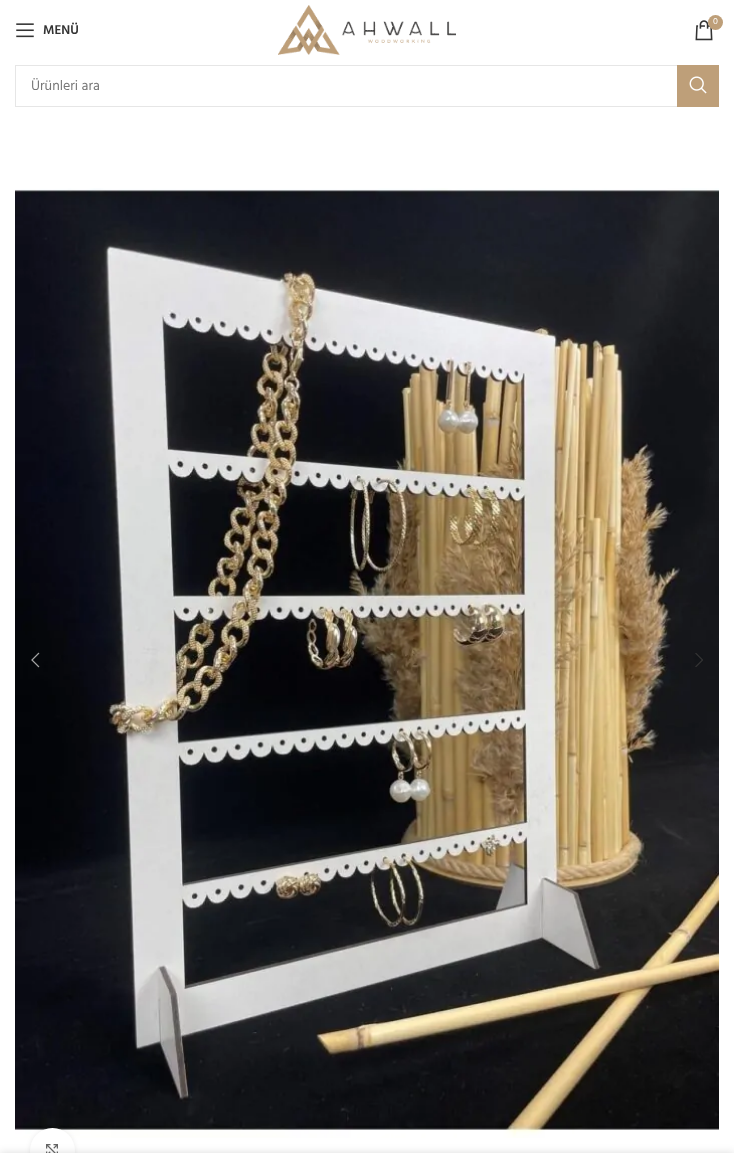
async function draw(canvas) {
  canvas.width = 734;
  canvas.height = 1153;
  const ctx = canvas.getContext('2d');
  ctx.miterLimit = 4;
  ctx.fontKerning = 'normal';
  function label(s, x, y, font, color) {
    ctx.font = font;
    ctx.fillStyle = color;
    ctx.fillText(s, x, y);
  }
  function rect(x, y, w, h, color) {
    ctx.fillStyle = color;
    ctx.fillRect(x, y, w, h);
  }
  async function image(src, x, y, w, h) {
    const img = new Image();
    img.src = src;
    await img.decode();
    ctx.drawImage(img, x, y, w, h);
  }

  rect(0, 0, 734, 1153, '#fff');
  await image('assets/img1.png', 16, 23, 18, 15);
  label('MENÜ', 43, 34, '600 13px Hind', '#333');
  await image('assets/img2.png', 278, 5, 178, 50);
  await image('assets/img3.png', 695, 20, 18, 21);
  ctx.fillStyle = '#be9f79';
  ctx.beginPath();
  ctx.arc(715.5, 22.5, 7.5, 0, 2 * Math.PI);
  ctx.fill();
  label('0', 713, 24, '9px Hind', '#fff');
  ctx.strokeStyle = '#e6e6e6';
  ctx.strokeRect(15.5, 65.5, 703, 41);
  label('Ürünleri ara', 31, 90, '14px Hind', '#777');
  rect(677, 65, 42, 42, '#be9f79');
  await image('assets/img4.png', 689, 76, 18, 18);
  await image('assets/img5.png', 15, 188, 704, 950);
  await image('assets/img6.png', 31, 652, 9, 16);
  await image('assets/img7.png', 695, 653, 8, 14);
  ctx.fillStyle = '#00000014';
  ctx.filter = 'blur(2.5px)';
  ctx.beginPath();
  ctx.roundRect(30, 1128, 45, 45, 22.5);
  ctx.fill();
  ctx.filter = 'none';
  ctx.fillStyle = '#fff';
  ctx.beginPath();
  ctx.arc(52.5, 1150.5, 22.5, 0, 2 * Math.PI);
  ctx.fill();
  await image('assets/img8.png', 46, 1144, 12, 9);
  ctx.fillStyle = '#00000024';
  ctx.filter = 'blur(4.5px)';
  ctx.beginPath();
  ctx.rect(0, 1153, 734, 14);
  ctx.fill();
  ctx.filter = 'none';
}

draw(document.querySelector('canvas'));
